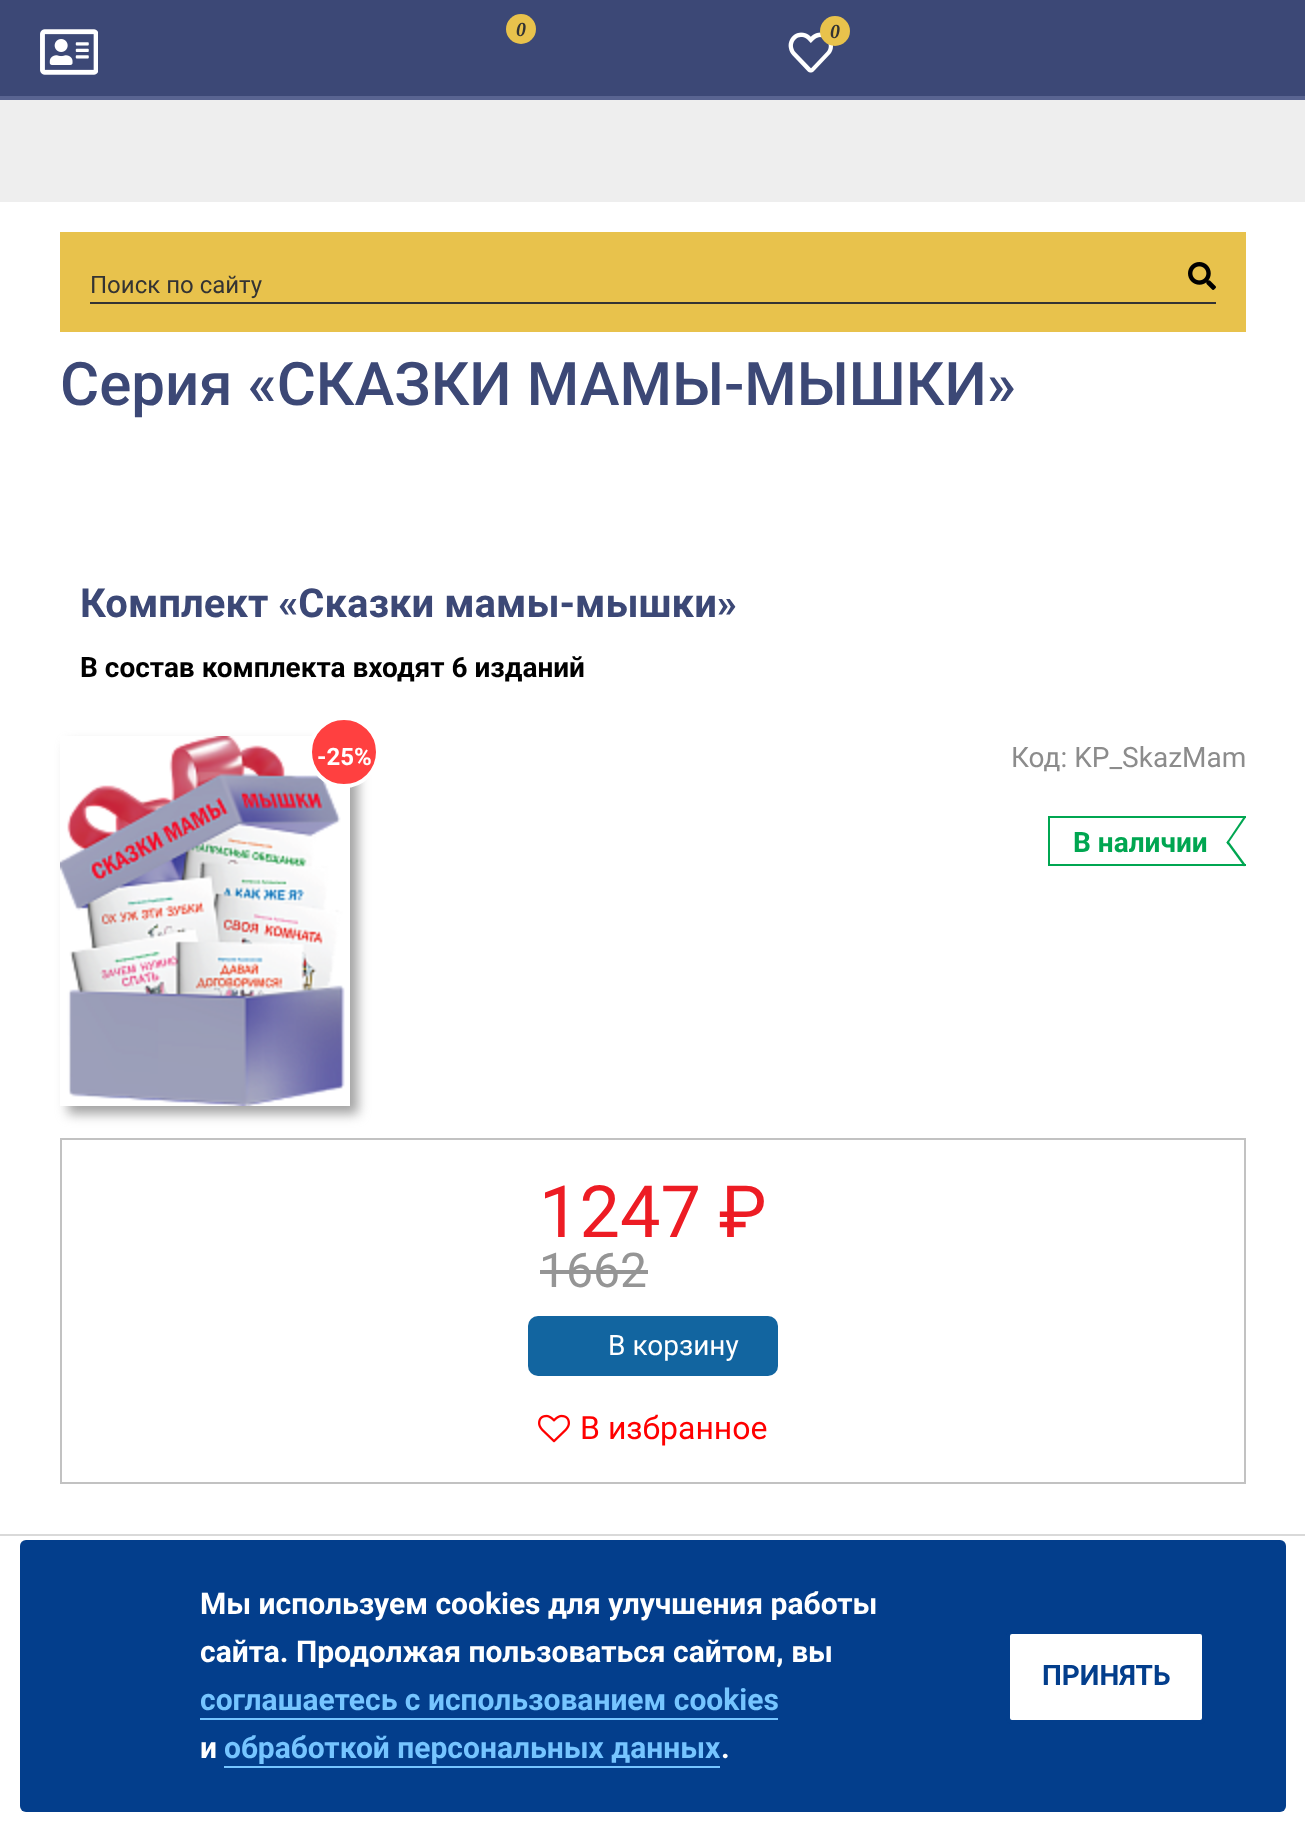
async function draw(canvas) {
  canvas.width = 1305;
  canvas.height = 1831;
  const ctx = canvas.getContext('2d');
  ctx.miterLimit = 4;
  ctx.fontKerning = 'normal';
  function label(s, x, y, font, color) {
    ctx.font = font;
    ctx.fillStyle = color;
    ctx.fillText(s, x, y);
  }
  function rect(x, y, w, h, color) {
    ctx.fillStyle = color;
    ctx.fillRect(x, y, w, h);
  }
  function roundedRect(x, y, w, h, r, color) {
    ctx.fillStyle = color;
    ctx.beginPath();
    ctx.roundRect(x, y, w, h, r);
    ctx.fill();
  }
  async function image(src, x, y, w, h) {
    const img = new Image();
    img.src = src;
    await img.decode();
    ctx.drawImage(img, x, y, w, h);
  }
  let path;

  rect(0, 0, 1305, 1831, '#fff');
  rect(0, 0, 1305, 96, '#3c4876');
  rect(0, 96, 1305, 4, '#596491');
  await image('assets/img1.png', 40, 29, 58, 46);
  ctx.fillStyle = '#e8c24c';
  ctx.beginPath();
  ctx.arc(521, 29, 15, 0, 2 * Math.PI);
  ctx.fill();
  label('0', 516, 36, 'italic bold 20px Liberation Serif', '#333');
  await image('assets/img2.png', 788, 32, 45, 41);
  ctx.fillStyle = '#e8c24c';
  ctx.beginPath();
  ctx.arc(835, 31, 15, 0, 2 * Math.PI);
  ctx.fill();
  label('0', 830, 38, 'italic bold 20px Liberation Serif', '#333');
  rect(0, 100, 1305, 102, '#eee');
  rect(60, 232, 1186, 100, '#e8c24c');
  rect(90, 302, 1126, 2, '#333');
  label('Поиск по сайту', 90, 293, '24px Roboto', '#333');
  await image('assets/img3.png', 1188, 262, 28, 28);
  label('Серия «СКАЗКИ МАМЫ-МЫШКИ»', 60, 405, '500 60px Roboto', '#3c4876');
  rect(0, 1534, 1305, 2, '#d9d9d9');
  label('Комплект «Сказки мамы-мышки»', 80, 617, 'bold 40px "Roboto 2"', '#3c4876');
  label('В состав комплекта входят 6 изданий', 80, 677, 'bold 28px Roboto', '#000');
  ctx.save();
  path = new Path2D('M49 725H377V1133H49ZM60 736H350V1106H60Z');
  ctx.clip(path, 'evenodd');
  ctx.fillStyle = '#a3a3a3';
  ctx.filter = 'blur(6px)';
  ctx.beginPath();
  ctx.rect(68, 744, 290, 370);
  ctx.fill();
  ctx.filter = 'none';
  ctx.restore();
  await image('assets/img4.png', 60, 736, 285, 370);
  ctx.fillStyle = '#ff4040';
  ctx.beginPath();
  ctx.arc(344, 752, 34, 0, 2 * Math.PI);
  ctx.fill();
  ctx.strokeStyle = '#fff';
  ctx.lineWidth = 4;
  ctx.stroke();
  label('-25%', 317, 765, 'bold 24px Roboto', '#fff');
  label('Код: KP_SkazMam', 1011, 767, '28px Roboto', '#8c8c8c');
  rect(1048, 816, 198, 2, '#00a651');
  rect(1048, 864, 198, 2, '#00a651');
  rect(1048, 816, 2, 50, '#00a651');
  label('В наличии', 1073, 852, 'bold 28px Roboto', '#00a651');
  path = new Path2D('M1228 840.5L1245.5 864.5L1244 866.5L1226.5 842.5Z');
  ctx.fill(path);
  path = new Path2D('M1244 816.5L1245.5 818L1227.5 844.5L1226.5 842.5Z');
  ctx.fill(path);
  ctx.strokeStyle = '#c2c2c2';
  ctx.lineWidth = 2;
  ctx.strokeRect(61, 1139, 1184, 344);
  label('1247 ₽', 539, 1237, '72px Roboto', '#ed1c24');
  label('1662', 539, 1287, '48px Roboto', '#959595');
  rect(540, 1270, 108, 4, '#959595');
  roundedRect(528, 1316, 250, 60, 10, '#1265a0');
  label('В корзину', 608, 1355, '28px Roboto', '#fff');
  await image('assets/img5.png', 538, 1414, 32, 29);
  label('В избранное', 580, 1439, '32px Roboto', '#f00');
  roundedRect(20, 1540, 1266, 272, 6, '#033e8c');
  label('Мы используем cookies для улучшения работы', 200, 1614, 'bold 30px Roboto', '#fff');
  label('сайта. Продолжая пользоваться сайтом, вы', 200, 1662, 'bold 30px Roboto', '#fff');
  label('соглашаетесь с использованием cookies', 200, 1710, 'bold 30px Roboto', '#76c5ff');
  rect(200, 1718, 578, 2, '#76c5ff');
  label('и', 200, 1758, 'bold 30px Roboto', '#fff');
  label('обработкой персональных данных', 224, 1758, 'bold 30px Roboto', '#76c5ff');
  rect(224, 1766, 496, 2, '#76c5ff');
  label('.', 721, 1758, 'bold 30px Roboto', '#fff');
  ctx.beginPath();
  ctx.roundRect(1008, 1632, 196, 90, 4);
  ctx.fill();
  ctx.strokeStyle = '#033e8c';
  ctx.lineWidth = 4;
  ctx.stroke();
  label('ПРИНЯТЬ', 1042, 1685, 'bold 28px Roboto', '#033e8c');
}

draw(document.querySelector('canvas'));
